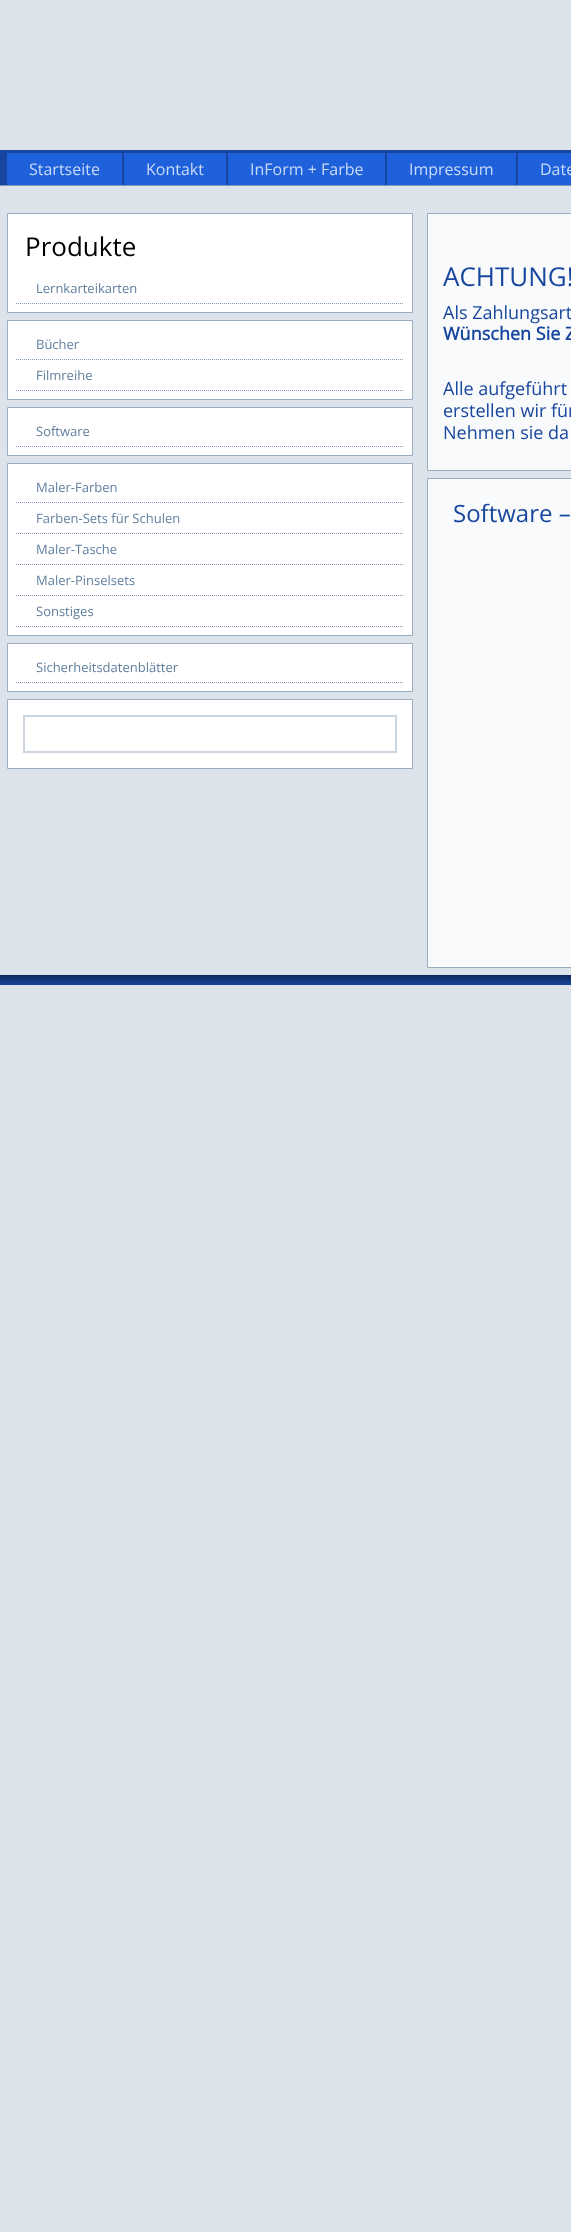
async function draw(canvas) {
  canvas.width = 571;
  canvas.height = 2232;
  const ctx = canvas.getContext('2d');
  ctx.miterLimit = 4;
  ctx.fontKerning = 'normal';
  function label(s, x, y, font, color) {
    ctx.font = font;
    ctx.fillStyle = color;
    ctx.fillText(s, x, y);
  }
  function rect(x, y, w, h, color) {
    ctx.fillStyle = color;
    ctx.fillRect(x, y, w, h);
  }
  let gradient, path;

  rect(0, 0, 571, 2232, '#dce3ea');
  rect(0, 150, 571, 35, '#17469e');
  rect(0, 185, 571, 1, '#8099b3');
  rect(7, 153, 115, 32, '#1f61db');
  label('Startseite', 29, 175, '16px Open Sans', '#c9daf7');
  rect(124, 153, 102, 32, '#1f61db');
  label('Kontakt', 146, 175, '16px Open Sans', '#c9daf7');
  rect(228, 153, 157, 32, '#1f61db');
  label('InForm + Farbe', 250, 175, '16px Open Sans', '#c9daf7');
  rect(387, 153, 129, 32, '#1f61db');
  label('Impressum', 409, 175, '16px Open Sans', '#c9daf7');
  rect(518, 153, 53, 32, '#1f61db');
  label('Date', 540, 175, '16px Open Sans', '#c9daf7');
  ctx.fillStyle = '#fff';
  ctx.beginPath();
  ctx.rect(7.5, 213.5, 405, 99);
  ctx.fill();
  ctx.strokeStyle = '#99adc2';
  ctx.stroke();
  label('Produkte', 25, 256, '26px Open Sans', '#000');
  path = new Path2D('M16 303.5H404');
  ctx.strokeStyle = '#8099b3';
  ctx.setLineDash([1, 1]);
  ctx.stroke(path);
  label('Lernkarteikarten', 36, 293, '13px Open Sans', '#607f9f');
  ctx.fillStyle = '#fff';
  ctx.beginPath();
  ctx.rect(7.5, 320.5, 405, 79);
  ctx.fill();
  ctx.strokeStyle = '#99adc2';
  ctx.setLineDash([]);
  ctx.stroke();
  path = new Path2D('M16 359.5H404');
  ctx.strokeStyle = '#8099b3';
  ctx.setLineDash([1, 1]);
  ctx.stroke(path);
  label('Bücher', 36, 349, '13px Open Sans', '#607f9f');
  path = new Path2D('M16 390.5H404');
  ctx.stroke(path);
  label('Filmreihe', 36, 380, '13px Open Sans', '#607f9f');
  ctx.fillStyle = '#fff';
  ctx.beginPath();
  ctx.rect(7.5, 407.5, 405, 48);
  ctx.fill();
  ctx.strokeStyle = '#99adc2';
  ctx.setLineDash([]);
  ctx.stroke();
  path = new Path2D('M16 446.5H404');
  ctx.strokeStyle = '#8099b3';
  ctx.setLineDash([1, 1]);
  ctx.stroke(path);
  label('Software', 36, 436, '13px Open Sans', '#607f9f');
  ctx.fillStyle = '#fff';
  ctx.beginPath();
  ctx.rect(7.5, 463.5, 405, 172);
  ctx.fill();
  ctx.strokeStyle = '#99adc2';
  ctx.setLineDash([]);
  ctx.stroke();
  path = new Path2D('M16 502.5H404');
  ctx.strokeStyle = '#8099b3';
  ctx.setLineDash([1, 1]);
  ctx.stroke(path);
  label('Maler-Farben', 36, 492, '13px Open Sans', '#607f9f');
  path = new Path2D('M16 533.5H404');
  ctx.stroke(path);
  label('Farben-Sets für Schulen', 36, 523, '13px Open Sans', '#607f9f');
  path = new Path2D('M16 564.5H404');
  ctx.stroke(path);
  label('Maler-Tasche', 36, 554, '13px Open Sans', '#607f9f');
  path = new Path2D('M16 595.5H404');
  ctx.stroke(path);
  label('Maler-Pinselsets', 36, 585, '13px Open Sans', '#607f9f');
  path = new Path2D('M16 626.5H404');
  ctx.stroke(path);
  label('Sonstiges', 36, 616, '13px Open Sans', '#607f9f');
  ctx.fillStyle = '#fff';
  ctx.beginPath();
  ctx.rect(7.5, 643.5, 405, 48);
  ctx.fill();
  ctx.strokeStyle = '#99adc2';
  ctx.setLineDash([]);
  ctx.stroke();
  path = new Path2D('M16 682.5H404');
  ctx.strokeStyle = '#8099b3';
  ctx.setLineDash([1, 1]);
  ctx.stroke(path);
  label('Sicherheitsdatenblätter', 36, 672, '13px Open Sans', '#607f9f');
  ctx.fillStyle = '#fff';
  ctx.beginPath();
  ctx.rect(7.5, 699.5, 405, 69);
  ctx.fill();
  ctx.strokeStyle = '#99adc2';
  ctx.setLineDash([]);
  ctx.stroke();
  ctx.strokeStyle = '#ccd6e0';
  ctx.lineWidth = 2;
  ctx.strokeRect(24, 716, 372, 36);
  ctx.fillStyle = '#f9fafb';
  ctx.beginPath();
  ctx.rect(427.5, 213.5, 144, 257);
  ctx.fill();
  ctx.strokeStyle = '#99adc2';
  ctx.lineWidth = 1;
  ctx.stroke();
  label('ACHTUNG!', 443, 286, '26px Open Sans', '#17469e');
  label('Als Zahlungsart', 443, 319, '18px Open Sans', '#17469e');
  label('Wünschen Sie Z', 443, 340, 'bold 18px Open Sans', '#17469e');
  label('Alle aufgeführt', 443, 395, '18px Open Sans', '#17469e');
  label('erstellen wir für', 443, 417, '18px Open Sans', '#17469e');
  label('Nehmen sie da', 443, 439, '18px Open Sans', '#17469e');
  ctx.fillStyle = '#f9fafb';
  ctx.beginPath();
  ctx.rect(427.5, 478.5, 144, 489);
  ctx.fill();
  ctx.stroke();
  label('Software –', 453, 522, '24px Open Sans', '#17469e');
  gradient = ctx.createLinearGradient(570, 975, 570, 985);
  gradient.addColorStop(0, '#0d2859');
  gradient.addColorStop(1, '#1747a1');
  ctx.fillStyle = gradient;
  ctx.fillRect(0, 975, 571, 10);
}

draw(document.querySelector('canvas'));
